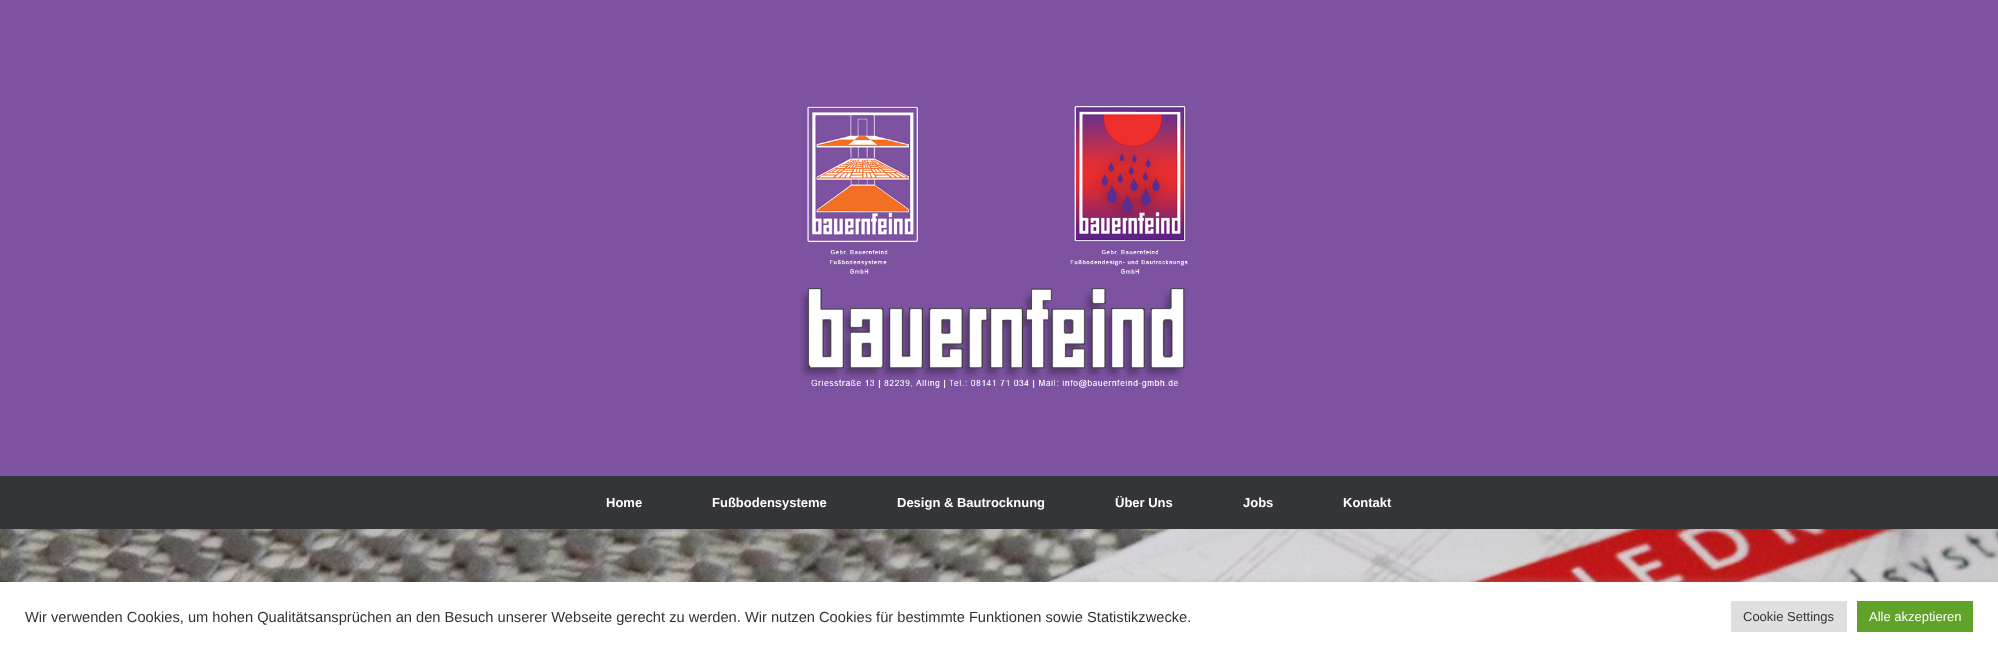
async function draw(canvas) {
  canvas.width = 1998;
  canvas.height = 651;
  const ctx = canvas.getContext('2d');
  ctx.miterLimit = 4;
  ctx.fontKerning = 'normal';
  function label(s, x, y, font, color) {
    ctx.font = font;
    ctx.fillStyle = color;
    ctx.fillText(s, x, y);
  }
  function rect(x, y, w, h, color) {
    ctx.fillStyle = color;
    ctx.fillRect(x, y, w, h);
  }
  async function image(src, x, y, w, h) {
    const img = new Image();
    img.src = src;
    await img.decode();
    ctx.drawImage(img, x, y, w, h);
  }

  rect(0, 0, 1998, 651, '#7c52a1');
  await image('assets/img1.png', 800, 106, 388, 282);
  rect(0, 476, 1998, 53, '#343538');
  label('Home', 606, 507, 'bold 13px Liberation Sans', '#fff');
  label('Fußbodensysteme', 712, 507, 'bold 13px Liberation Sans', '#fff');
  label('Design & Bautrocknung', 897, 507, 'bold 13px Liberation Sans', '#fff');
  label('Über Uns', 1115, 507, 'bold 13px Liberation Sans', '#fff');
  label('Jobs', 1243, 507, 'bold 13px Liberation Sans', '#fff');
  label('Kontakt', 1343, 507, 'bold 13px Liberation Sans', '#fff');
  await image('assets/img2.png', 0, 529, 1998, 53);
  ctx.fillStyle = '#acabab4d';
  ctx.filter = 'blur(5px)';
  ctx.beginPath();
  ctx.rect(0, 581, 1998, 69);
  ctx.fill();
  ctx.filter = 'none';
  rect(0, 582, 1998, 69, '#fff');
  label('Wir verwenden Cookies, um hohen Qualitätsansprüchen an den Besuch unserer Webseite gerecht zu werden. Wir nutzen Cookies für bestimmte Funktionen sowie Statistikzwecke.', 25, 622, '14.67px Liberation Sans', '#333');
  rect(1731, 601, 116, 31, '#dedfe0');
  label('Cookie Settings', 1743, 621, '13px Liberation Sans', '#333');
  rect(1857, 601, 116, 31, '#61a229');
  label('Alle akzeptieren', 1869, 621, '13px Liberation Sans', '#fff');
}

draw(document.querySelector('canvas'));
